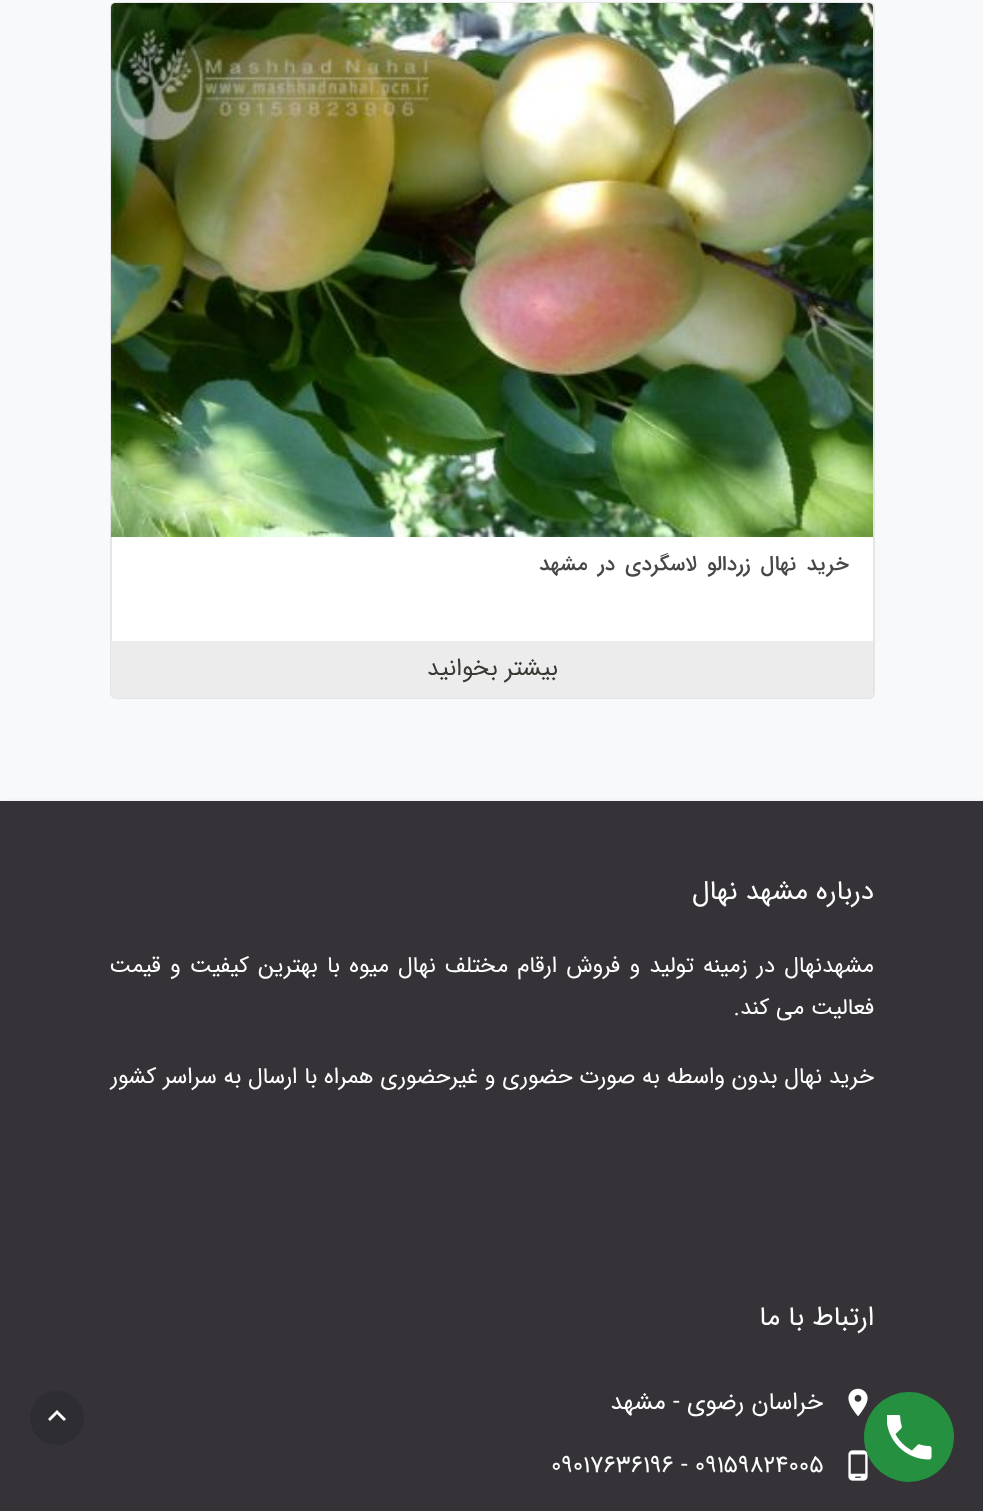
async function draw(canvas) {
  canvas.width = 983;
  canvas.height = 1511;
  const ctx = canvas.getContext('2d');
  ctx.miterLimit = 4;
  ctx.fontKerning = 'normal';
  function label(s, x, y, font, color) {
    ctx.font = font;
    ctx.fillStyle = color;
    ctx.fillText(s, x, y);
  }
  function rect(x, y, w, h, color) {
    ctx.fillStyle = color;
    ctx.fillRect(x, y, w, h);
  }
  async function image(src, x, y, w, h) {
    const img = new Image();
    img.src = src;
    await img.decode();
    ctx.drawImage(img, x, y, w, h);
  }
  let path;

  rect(0, 0, 983, 1511, '#f8f9fa');
  ctx.fillStyle = '#00000033';
  ctx.filter = 'blur(2px)';
  ctx.beginPath();
  ctx.rect(2, 803, 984, 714);
  ctx.fill();
  ctx.filter = 'none';
  rect(0, 801, 983, 710, '#353338');
  await image('assets/img3.png', 848, 1388, 20, 29);
  await image('assets/img4.png', 848, 1450, 20, 31);
  ctx.fillStyle = '#269041';
  ctx.beginPath();
  ctx.arc(909, 1437, 45, 0, 2 * Math.PI);
  ctx.fill();
  await image('assets/img1.png', 887, 1415, 45, 45);
  ctx.fillStyle = '#fff';
  ctx.beginPath();
  ctx.roundRect(111, 3, 763, 695, 5);
  ctx.fill();
  ctx.strokeStyle = '#e5e5e5';
  ctx.lineWidth = 2;
  ctx.stroke();
  await image('assets/img2.png', 111, 3, 762, 534);
  ctx.letterSpacing = '-0.75px';
  ctx.wordSpacing = '4.75px';
  ctx.direction = 'rtl';
  label('خرید نهال زردالو لاسگردی در مشهد', 849, 570, '500 21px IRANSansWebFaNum', '#464749');
  ctx.fillStyle = '#ececec';
  ctx.beginPath();
  ctx.roundRect(111, 641, 762, 57, [0, 0, 5, 5]);
  ctx.fill();
  ctx.letterSpacing = '0px';
  ctx.wordSpacing = '0px';
  label('بیشتر بخوانید', 558, 675, '24px IRANSansWebFaNum', '#373a33');
  label('درباره مشهد نهال', 874, 899, '27px IRANSansWebFaNum', '#fff');
  ctx.wordSpacing = '2.4px';
  label('مشهدنهال در زمینه تولید و فروش ارقام مختلف نهال میوه با بهترین کیفیت و قیمت', 874, 972, '22.5px IRANSansWebFaNum', '#fff');
  ctx.wordSpacing = '0px';
  label('فعالیت می کند.', 874, 1014, '22.5px IRANSansWebFaNum', '#fff');
  label('خرید نهال بدون واسطه به صورت حضوری و غیرحضوری همراه با ارسال به سراسر کشور', 874, 1083, '22.5px IRANSansWebFaNum', '#fff');
  label('ارتباط با ما', 874, 1325, '27px IRANSansWebFaNum', '#fff');
  label('خراسان رضوی - مشهد', 823, 1409, '24px IRANSansWebFaNum', '#fff');
  ctx.direction = 'ltr';
  label('09017636196 - ۰۹۱۵۹۸۲۴۰۰۵', 551, 1472, '24px IRANSansWebFaNum', '#fff');
  ctx.fillStyle = '#2e2d31';
  ctx.beginPath();
  ctx.arc(57, 1418, 27, 0, 2 * Math.PI);
  ctx.fill();
  ctx.fillStyle = '#fff';
  path = new Path2D('M50 1421L48 1419L57 1410L66 1419L64 1421L57 1414Z');
  ctx.fill(path);
}

draw(document.querySelector('canvas'));
